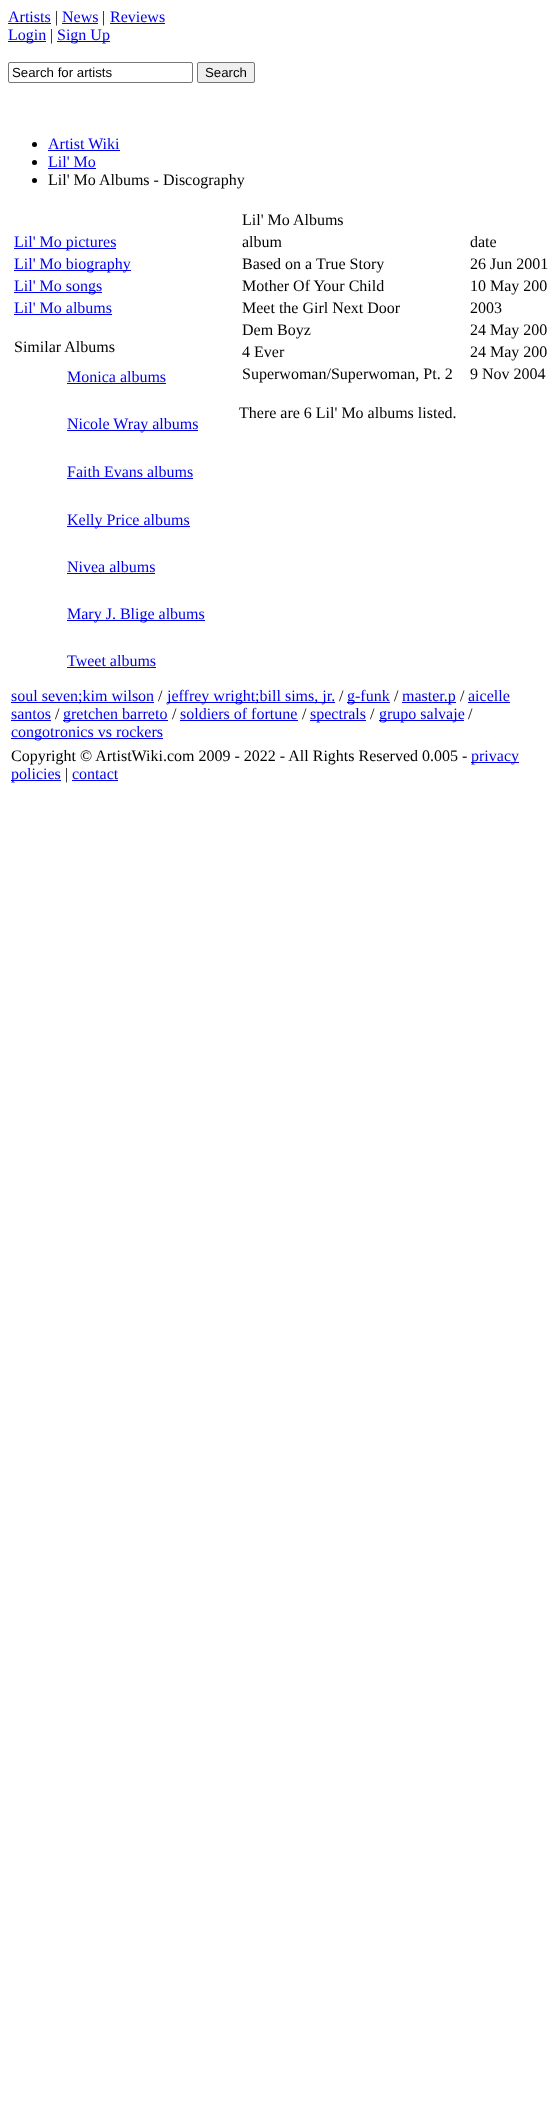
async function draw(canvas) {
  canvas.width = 550;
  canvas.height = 2110;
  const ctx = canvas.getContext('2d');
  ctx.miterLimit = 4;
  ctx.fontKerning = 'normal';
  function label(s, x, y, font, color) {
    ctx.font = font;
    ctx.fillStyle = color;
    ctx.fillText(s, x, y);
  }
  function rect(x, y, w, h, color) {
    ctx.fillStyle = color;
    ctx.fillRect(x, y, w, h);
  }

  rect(0, 0, 550, 2110, '#fff');
  label('Artists', 8, 22, '16px Liberation Serif', '#00e');
  rect(8, 23, 43, 1, '#00e');
  label('|', 55, 22, '16px Liberation Serif', '#000');
  label('News', 62, 22, '16px Liberation Serif', '#00e');
  rect(62, 23, 36, 1, '#00e');
  label('|', 102, 22, '16px Liberation Serif', '#000');
  label('Reviews', 110, 22, '16px Liberation Serif', '#00e');
  rect(110, 23, 55, 1, '#00e');
  rect(8, 41, 38, 1, '#00e');
  label('Login', 8, 40, '16px Liberation Serif', '#00e');
  label('|', 50, 40, '16px Liberation Serif', '#000');
  rect(57, 41, 53, 1, '#00e');
  label('Sign Up', 57, 40, '16px Liberation Serif', '#00e');
  ctx.beginPath();
  ctx.roundRect(8.5, 62.5, 184, 20, 1.5);
  ctx.strokeStyle = '#767676';
  ctx.stroke();
  label('Search for artists', 12, 77, '13.25px Liberation Sans', '#000');
  ctx.fillStyle = '#efefef';
  ctx.beginPath();
  ctx.roundRect(197.5, 62.5, 57, 20, 1.5);
  ctx.fill();
  ctx.stroke();
  label('Search', 205, 77, '13.25px Liberation Sans', '#000');
  ctx.beginPath();
  ctx.arc(34.5, 144.5, 2.5, 0, 2 * Math.PI);
  ctx.fill();
  label('Artist Wiki', 48, 149, '16px Liberation Serif', '#00e');
  rect(48, 150, 72, 1, '#00e');
  ctx.fillStyle = '#000';
  ctx.beginPath();
  ctx.arc(34.5, 162.5, 2.5, 0, 2 * Math.PI);
  ctx.fill();
  label('Lil\' Mo', 48, 167, '16px Liberation Serif', '#00e');
  rect(48, 168, 48, 1, '#00e');
  ctx.fillStyle = '#000';
  ctx.beginPath();
  ctx.arc(34.5, 180.5, 2.5, 0, 2 * Math.PI);
  ctx.fill();
  label('Lil\' Mo Albums - Discography', 48, 185, '16px Liberation Serif', '#000');
  rect(14, 248, 102, 1, '#00e');
  label('Lil\' Mo pictures', 14, 247, '16px Liberation Serif', '#00e');
  rect(14, 270, 117, 1, '#00e');
  label('Lil\' Mo biography', 14, 269, '16px Liberation Serif', '#00e');
  rect(14, 292, 88, 1, '#00e');
  label('Lil\' Mo songs', 14, 291, '16px Liberation Serif', '#00e');
  label('Lil\' Mo albums', 14, 313, '16px Liberation Serif', '#00e');
  rect(14, 314, 98, 1, '#00e');
  label('Similar Albums', 14, 352, '16px Liberation Serif', '#000');
  label('Monica albums', 67, 382, '16px Liberation Serif', '#00e');
  rect(67, 383, 99, 1, '#00e');
  rect(67, 430, 131, 1, '#00e');
  label('Nicole Wray albums', 67, 429, '16px Liberation Serif', '#00e');
  label('Faith Evans albums', 67, 477, '16px Liberation Serif', '#00e');
  rect(67, 478, 126, 1, '#00e');
  rect(67, 526, 123, 1, '#00e');
  label('Kelly Price albums', 67, 525, '16px Liberation Serif', '#00e');
  label('Nivea albums', 67, 572, '16px Liberation Serif', '#00e');
  rect(67, 573, 88, 1, '#00e');
  rect(67, 620, 138, 1, '#00e');
  label('Mary J. Blige albums', 67, 619, '16px Liberation Serif', '#00e');
  label('Tweet albums', 67, 666, '16px Liberation Serif', '#00e');
  rect(67, 667, 89, 1, '#00e');
  label('Lil\' Mo Albums', 242, 225, '16px Liberation Serif', '#000');
  label('album', 242, 247, '16px Liberation Serif', '#000');
  label('date', 470, 247, '16px Liberation Serif', '#000');
  label('Based on a True Story', 242, 269, '16px Liberation Serif', '#000');
  label('26 Jun 2001', 470, 269, '16px Liberation Serif', '#000');
  label('Mother Of Your Child', 242, 291, '16px Liberation Serif', '#000');
  label('10 May 200', 470, 291, '16px Liberation Serif', '#000');
  label('Meet the Girl Next Door', 242, 313, '16px Liberation Serif', '#000');
  label('2003', 470, 313, '16px Liberation Serif', '#000');
  label('Dem Boyz', 242, 335, '16px Liberation Serif', '#000');
  label('24 May 200', 470, 335, '16px Liberation Serif', '#000');
  label('4 Ever', 242, 357, '16px Liberation Serif', '#000');
  label('24 May 200', 470, 357, '16px Liberation Serif', '#000');
  label('Superwoman/Superwoman, Pt. 2', 242, 379, '16px Liberation Serif', '#000');
  label('9 Nov 2004', 470, 379, '16px Liberation Serif', '#000');
  label('There are 6 Lil\' Mo albums listed.', 239, 418, '16px Liberation Serif', '#000');
  rect(11, 702, 143, 1, '#00e');
  label('soul seven;kim wilson', 11, 701, '16px Liberation Serif', '#00e');
  label('/', 158, 701, '16px Liberation Serif', '#000');
  rect(167, 702, 168, 1, '#00e');
  label('jeffrey wright;bill sims, jr.', 167, 701, '16px Liberation Serif', '#00e');
  label('/', 339, 701, '16px Liberation Serif', '#000');
  rect(347, 702, 43, 1, '#00e');
  label('g-funk', 347, 701, '16px Liberation Serif', '#00e');
  label('/', 394, 701, '16px Liberation Serif', '#000');
  rect(402, 702, 54, 1, '#00e');
  label('master.p', 402, 701, '16px Liberation Serif', '#00e');
  label('/', 460, 701, '16px Liberation Serif', '#000');
  label('aicelle', 468, 701, '16px Liberation Serif', '#00e');
  rect(468, 702, 42, 1, '#00e');
  label('santos', 11, 719, '16px Liberation Serif', '#00e');
  rect(11, 720, 40, 1, '#00e');
  label('/', 55, 719, '16px Liberation Serif', '#000');
  rect(63, 720, 105, 1, '#00e');
  label('gretchen barreto', 63, 719, '16px Liberation Serif', '#00e');
  label('/', 172, 719, '16px Liberation Serif', '#000');
  label('soldiers of fortune', 180, 719, '16px Liberation Serif', '#00e');
  rect(180, 720, 118, 1, '#00e');
  label('/', 302, 719, '16px Liberation Serif', '#000');
  rect(310, 720, 56, 1, '#00e');
  label('spectrals', 310, 719, '16px Liberation Serif', '#00e');
  label('/', 370, 719, '16px Liberation Serif', '#000');
  rect(379, 720, 85, 1, '#00e');
  label('grupo salvaje', 379, 719, '16px Liberation Serif', '#00e');
  label('/', 468, 719, '16px Liberation Serif', '#000');
  rect(11, 738, 152, 1, '#00e');
  label('congotronics vs rockers', 11, 737, '16px Liberation Serif', '#00e');
  label('Copyright © ArtistWiki.com 2009 - 2022 - All Rights Reserved 0.005 -', 11, 761, '16px Liberation Serif', '#000');
  rect(471, 762, 48, 1, '#00e');
  label('privacy', 471, 761, '16px Liberation Serif', '#00e');
  rect(11, 780, 50, 1, '#00e');
  label('policies', 11, 779, '16px Liberation Serif', '#00e');
  label('|', 65, 779, '16px Liberation Serif', '#000');
  label('contact', 72, 779, '16px Liberation Serif', '#00e');
  rect(72, 780, 46, 1, '#00e');
}

draw(document.querySelector('canvas'));
